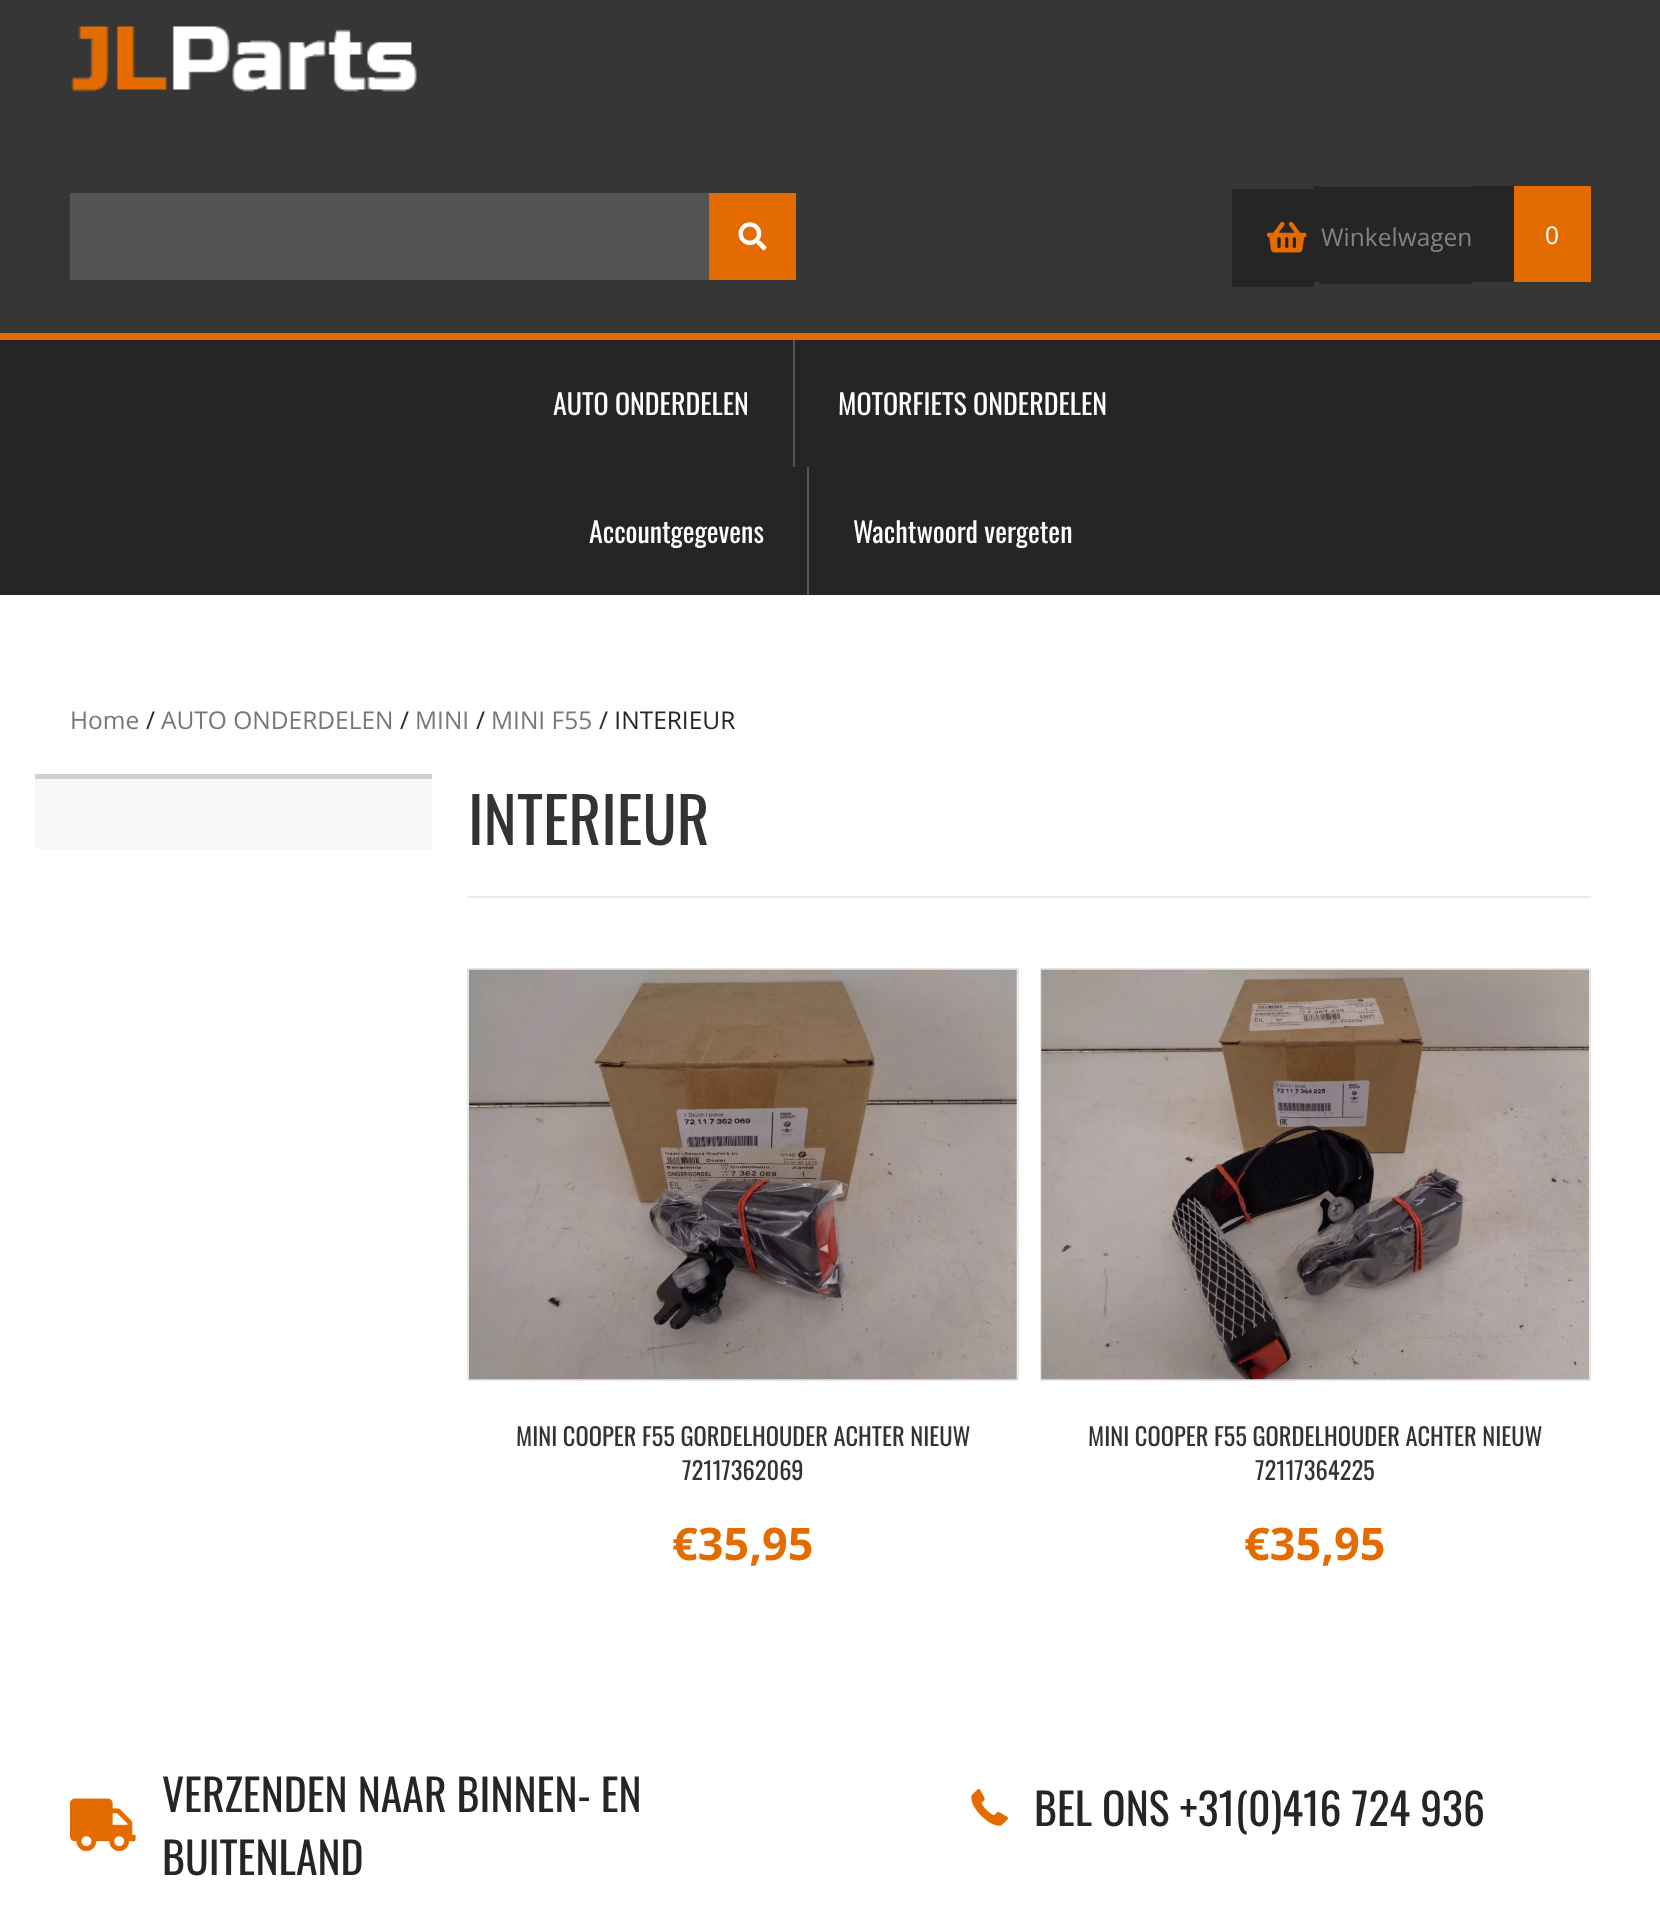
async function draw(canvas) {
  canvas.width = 1660;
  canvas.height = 1906;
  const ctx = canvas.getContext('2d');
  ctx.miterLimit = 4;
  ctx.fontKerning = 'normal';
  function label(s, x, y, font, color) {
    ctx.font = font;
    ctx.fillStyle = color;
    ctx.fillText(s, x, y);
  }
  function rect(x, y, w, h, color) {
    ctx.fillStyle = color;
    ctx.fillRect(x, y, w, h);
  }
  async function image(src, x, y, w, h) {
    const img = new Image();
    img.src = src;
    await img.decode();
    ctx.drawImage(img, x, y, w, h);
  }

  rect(0, 0, 1660, 1906, '#fff');
  rect(0, 0, 1660, 333, '#363636');
  rect(0, 333, 1660, 7, '#e46b00');
  await image('assets/img1.png', 71, 26, 346, 66);
  rect(70, 193, 639, 87, '#545454');
  rect(709, 193, 87, 87, '#e46b00');
  await image('assets/img2.png', 738, 222, 29, 29);
  rect(1232, 189, 82, 98, '#252525');
  rect(1314, 186, 7, 96, '#252525');
  rect(1321, 187, 151, 97, '#252525');
  rect(1472, 186, 42, 96, '#252525');
  await image('assets/img3.png', 1267, 221, 40, 32);
  label('Winkelwagen', 1321, 246, '24.5px Open Sans', '#838383');
  rect(1514, 186, 77, 96, '#e46b00');
  label('0', 1545, 244, '24.5px Open Sans', '#fff');
  rect(0, 340, 1660, 255, '#252525');
  label('AUTO ONDERDELEN', 553, 415, '28px Oswald', '#fff');
  rect(793, 340, 2, 127, '#545454');
  label('MOTORFIETS ONDERDELEN', 838, 415, '28px Oswald', '#fff');
  label('Accountgegevens', 589, 543, '28px Oswald', '#fff');
  rect(807, 467, 2, 128, '#545454');
  label('Wachtwoord vergeten', 853, 543, '28px Oswald', '#fff');
  label('Home', 70, 729, '24.5px Open Sans', '#777');
  label('/', 146, 729, '24.5px Open Sans', '#252525');
  label('AUTO ONDERDELEN', 161, 729, '24.5px Open Sans', '#777');
  label('/', 400, 729, '24.5px Open Sans', '#252525');
  label('MINI', 415, 729, '24.5px Open Sans', '#777');
  label('/', 476, 729, '24.5px Open Sans', '#252525');
  label('MINI F55', 491, 729, '24.5px Open Sans', '#777');
  label('/ INTERIEUR', 599, 729, '24.5px Open Sans', '#252525');
  rect(35, 779, 397, 70, '#f8f8f8');
  rect(35, 774, 397, 5, '#d1d1d1');
  label('INTERIEUR', 468, 845, '63px Oswald', '#333');
  rect(467, 896, 1124, 2, '#eaeaea');
  ctx.strokeStyle = '#e6e6e6';
  ctx.lineWidth = 2;
  ctx.strokeRect(468, 969, 550, 411);
  await image('assets/img4.png', 469, 969, 548, 411);
  label('MINI COOPER F55 GORDELHOUDER ACHTER NIEUW', 516, 1446, '24.5px Oswald', '#333');
  label('72117362069', 682, 1480, '24.5px Oswald', '#333');
  label('€35,95', 672, 1560, 'bold 45px Open Sans', '#e46b00');
  ctx.strokeRect(1041, 969, 549, 411);
  await image('assets/img5.png', 1041, 969, 548, 411);
  label('MINI COOPER F55 GORDELHOUDER ACHTER NIEUW', 1088, 1446, '24.5px Oswald', '#333');
  label('72117364225', 1255, 1480, '24.5px Oswald', '#333');
  label('€35,95', 1244, 1560, 'bold 45px Open Sans', '#e46b00');
  await image('assets/img6.png', 70, 1798, 66, 54);
  label('VERZENDEN NAAR BINNEN- EN', 162, 1812, '43.75px Oswald', '#252525');
  label('BUITENLAND', 162, 1875, '43.75px Oswald', '#252525');
  await image('assets/img7.png', 971, 1789, 37, 37);
  label('BEL ONS +31(0)416 724 936', 1034, 1826, '43.75px Oswald', '#252525');
}

draw(document.querySelector('canvas'));
